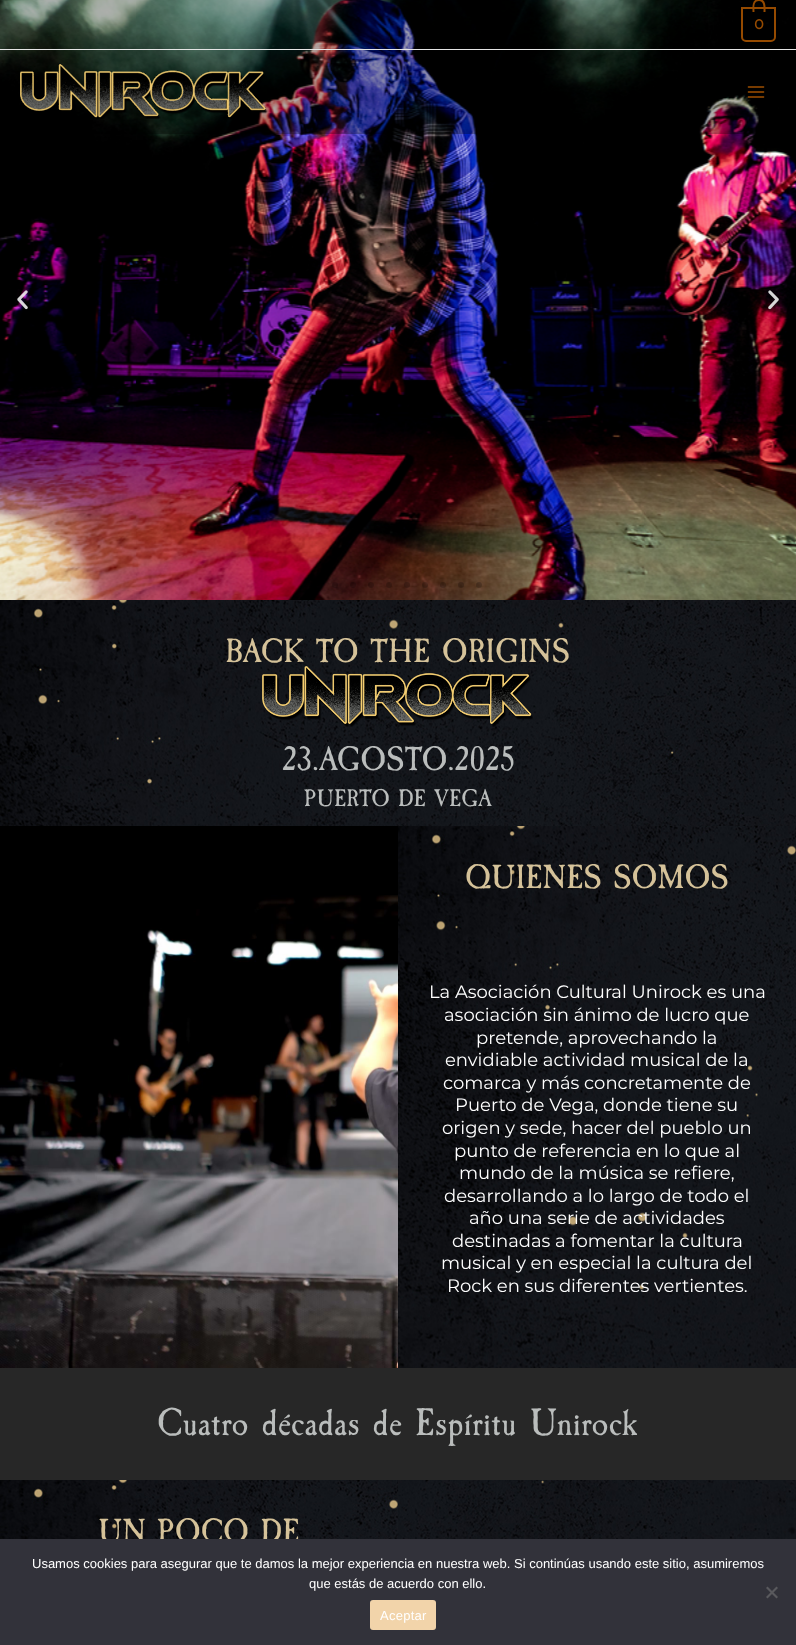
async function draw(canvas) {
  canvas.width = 796;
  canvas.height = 1645;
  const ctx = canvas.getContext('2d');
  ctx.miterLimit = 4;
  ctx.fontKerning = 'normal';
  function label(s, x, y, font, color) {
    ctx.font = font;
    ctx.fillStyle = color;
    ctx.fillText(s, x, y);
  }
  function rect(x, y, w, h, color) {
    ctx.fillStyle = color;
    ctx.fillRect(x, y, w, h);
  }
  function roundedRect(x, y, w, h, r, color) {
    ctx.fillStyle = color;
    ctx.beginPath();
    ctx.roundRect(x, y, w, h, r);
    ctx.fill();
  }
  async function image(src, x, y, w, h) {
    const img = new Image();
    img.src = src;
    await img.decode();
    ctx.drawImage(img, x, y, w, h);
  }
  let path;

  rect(0, 0, 796, 1645, '#000');
  await image('assets/img3.png', 0, 0, 796, 600);
  rect(0, 0, 708, 49, '#0000004d');
  rect(0, 49, 796, 1, '#e5e5e5');
  ctx.beginPath();
  ctx.roundRect(742, 8, 33, 33, [0, 0, 4, 4]);
  ctx.strokeStyle = '#954a00';
  ctx.lineWidth = 2;
  ctx.stroke();
  ctx.fillStyle = '#954a00';
  path = new Path2D('M759-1C766.5-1 765.5 7 765.5 12H752.5C752.5 7 751.5-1 759-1ZM759 1C764.5 1 763.5 8.5 763.5 12H754.5C754.5 8.5 753 1 759 1Z');
  ctx.fill(path, 'evenodd');
  label('0', 754, 29, 'bold 16px Raleway', '#954a00');
  rect(0, 50, 759, 84, '#0000004d');
  await image('assets/img1.png', 20, 64, 248, 55);
  await image('assets/img2.png', 747, 86, 18, 12);
  await image('assets/img4.png', 17, 290, 11, 20);
  await image('assets/img5.png', 768, 290, 11, 20);
  ctx.fillStyle = '#00000033';
  ctx.beginPath();
  ctx.arc(335, 585, 3, 0, 2 * Math.PI);
  ctx.fill();
  ctx.beginPath();
  ctx.arc(353, 585, 3, 0, 2 * Math.PI);
  ctx.fill();
  ctx.beginPath();
  ctx.arc(371, 585, 3, 0, 2 * Math.PI);
  ctx.fill();
  ctx.beginPath();
  ctx.arc(389, 585, 3, 0, 2 * Math.PI);
  ctx.fill();
  ctx.beginPath();
  ctx.arc(407, 585, 3, 0, 2 * Math.PI);
  ctx.fill();
  ctx.beginPath();
  ctx.arc(425, 585, 3, 0, 2 * Math.PI);
  ctx.fill();
  ctx.beginPath();
  ctx.arc(443, 585, 3, 0, 2 * Math.PI);
  ctx.fill();
  ctx.beginPath();
  ctx.arc(461, 585, 3, 0, 2 * Math.PI);
  ctx.fill();
  ctx.beginPath();
  ctx.arc(479, 585, 3, 0, 2 * Math.PI);
  ctx.fill();
  await image('assets/img6.png', 0, 600, 796, 226);
  label('BACK TO THE ORIGINS', 225, 662, '35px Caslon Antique', '#d5c299');
  await image('assets/img7.png', 262, 666, 271, 61);
  label('23.AGOSTO.2025', 282, 770, '35px Caslon Antique', '#babdbc');
  label('PUERTO DE VEGA', 304, 806, '25px Caslon Antique', '#babdbc');
  await image('assets/img8.png', 0, 895, 398, 473);
  await image('assets/img9.png', 398, 826, 398, 542);
  label('QUIENES SOMOS', 465, 888, '35px Caslon Antique', '#d5c299');
  label('La Asociación Cultural Unirock es una', 429, 998, '18px Montserrat', '#fff');
  label('asociación sin ánimo de lucro que', 444, 1021, '18px Montserrat', '#fff');
  label('pretende, aprovechando la', 476, 1044, '18px Montserrat', '#fff');
  label('envidiable actividad musical de la', 445, 1066, '18px Montserrat', '#fff');
  label('comarca y más concretamente de', 443, 1089, '18px Montserrat', '#fff');
  label('Puerto de Vega, donde tiene su', 455, 1111, '18px Montserrat', '#fff');
  label('origen y sede, hacer del pueblo un', 442, 1134, '18px Montserrat', '#fff');
  label('punto de referencia en lo que al', 454, 1157, '18px Montserrat', '#fff');
  label('mundo de la música se refiere,', 459, 1179, '18px Montserrat', '#fff');
  label('desarrollando a lo largo de todo el', 444, 1202, '18px Montserrat', '#fff');
  label('año una serie de actividades', 469, 1224, '18px Montserrat', '#fff');
  label('destinadas a fomentar la cultura', 452, 1247, '18px Montserrat', '#fff');
  label('musical y en especial la cultura del', 441, 1269, '18px Montserrat', '#fff');
  label('Rock en sus diferentes vertientes.', 447, 1292, '18px Montserrat', '#fff');
  rect(0, 1368, 796, 112, '#272727');
  label('Cuatro décadas de Espíritu Unirock', 157, 1435, '40px Caslon Antique', '#babdbc');
  await image('assets/img10.png', 398, 1480, 398, 59);
  await image('assets/img11.png', 0, 1480, 398, 59);
  label('UN POCO DE', 98, 1542, '35px Caslon Antique', '#d5c299');
  rect(0, 1539, 796, 106, '#32323a');
  label('Usamos cookies para asegurar que te damos la mejor experiencia en nuestra web. Si continúas usando este sitio, asumiremos', 32, 1568, '13px Liberation Sans', '#fff');
  label('que estás de acuerdo con ello.', 309, 1588, '13px Liberation Sans', '#fff');
  ctx.fillStyle = '#59595d';
  path = new Path2D('M776.5 1586.5L778 1588L767.5 1598.5L766 1597Z');
  ctx.fill(path);
  path = new Path2D('M766 1588L767.5 1586.5L778 1597L776.5 1598.5Z');
  ctx.fill(path);
  roundedRect(370, 1600, 66, 30, 3, '#f2d4aa');
  ctx.letterSpacing = '0.25px';
  label('Aceptar', 380, 1620, '13px Liberation Sans', '#fff');
}

draw(document.querySelector('canvas'));
